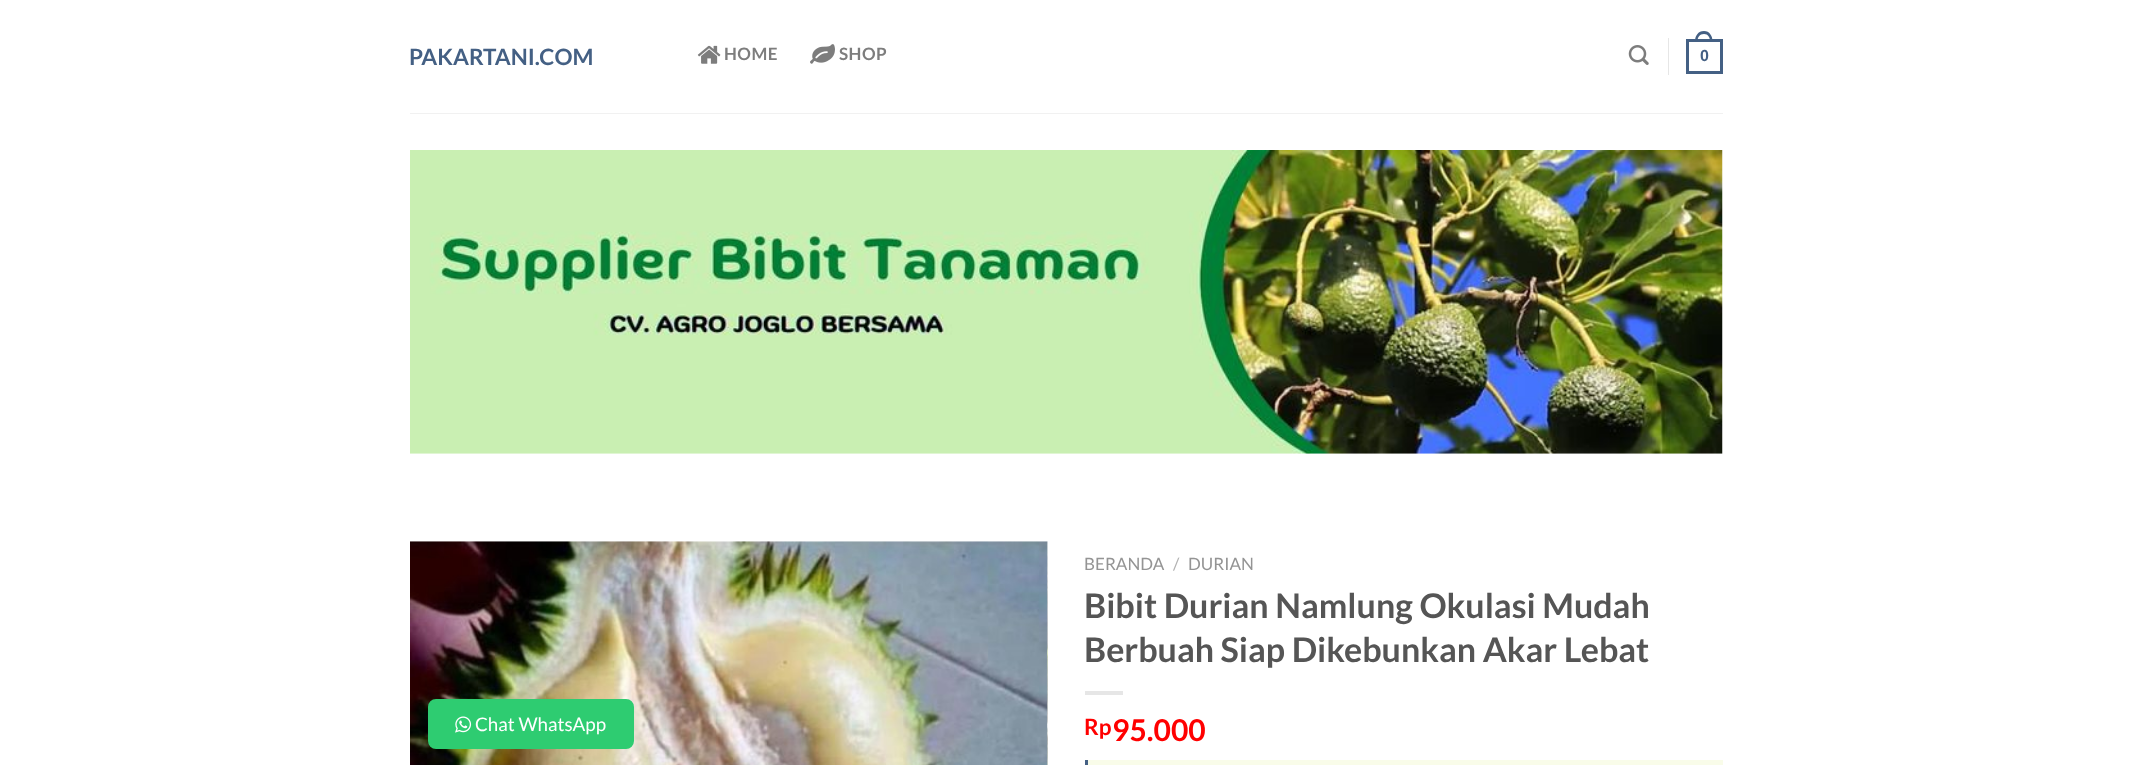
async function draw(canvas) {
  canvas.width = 2131;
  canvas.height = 765;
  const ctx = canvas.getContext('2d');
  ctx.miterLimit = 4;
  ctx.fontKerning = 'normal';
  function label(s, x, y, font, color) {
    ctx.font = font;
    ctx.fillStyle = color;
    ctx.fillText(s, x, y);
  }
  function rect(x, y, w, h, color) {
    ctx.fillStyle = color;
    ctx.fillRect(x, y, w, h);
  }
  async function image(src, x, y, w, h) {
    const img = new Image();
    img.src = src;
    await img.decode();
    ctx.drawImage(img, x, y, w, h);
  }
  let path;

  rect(0, 0, 2131, 765, '#fff');
  label('PAKARTANI.COM', 409, 65, 'bold 22.5px Lato', '#446084');
  await image('assets/img1.png', 697, 45, 24, 19);
  ctx.letterSpacing = '0.5px';
  label('HOME', 724, 60, 'bold 17px Lato', '#7d7d7d');
  await image('assets/img2.png', 810, 44, 25, 20);
  label('SHOP', 839, 60, 'bold 17px Lato', '#7d7d7d');
  await image('assets/img3.png', 1628, 45, 21, 20);
  rect(1668, 38, 1, 37, '#e6e6e6');
  ctx.strokeStyle = '#446084';
  ctx.lineWidth = 3;
  ctx.strokeRect(1687.5, 40.5, 34, 32);
  ctx.fillStyle = '#446084';
  path = new Path2D('M1704 31C1709.5 31 1712.5 36 1712.5 41H1695C1695 36 1698 31 1704 31ZM1704 34C1708 34 1710 37.5 1710 41H1697.5C1697.5 37.5 1699.5 34 1704 34Z');
  ctx.fill(path, 'evenodd');
  ctx.letterSpacing = '0px';
  label('0', 1700, 61, 'bold 16px Liberation Sans', '#446084');
  rect(410, 113, 1313, 1, '#f1f1f1');
  await image('assets/img6.png', 410, 541, 638, 224);
  ctx.fillStyle = '#2ecc71';
  ctx.beginPath();
  ctx.roundRect(429.5, 700.5, 203, 47, 6.5);
  ctx.fill();
  ctx.strokeStyle = '#2ecc71';
  ctx.stroke();
  await image('assets/img4.png', 455, 716, 17, 17);
  label('Chat WhatsApp', 475, 731, '18.75px Lato', '#fff');
  await image('assets/img5.png', 410, 150, 1313, 304);
  await image('assets/img7.png', 1047, 541, 1, 224);
  label('BERANDA', 1084, 570, '17px Lato', '#949494');
  label('/', 1173, 570, '17px Lato', '#b2b2b2');
  label('DURIAN', 1188, 570, '17px Lato', '#949494');
  label('Bibit Durian Namlung Okulasi Mudah', 1084, 618, 'bold 34px Lato', '#555');
  label('Berbuah Siap Dikebunkan Akar Lebat', 1084, 662, 'bold 34px Lato', '#555');
  rect(1085, 691, 38, 4, '#e6e6e6');
  label('Rp', 1084, 735, 'bold 22.5px Lato', '#f00');
  label('95.000', 1112, 741, 'bold 30px Lato', '#f00');
  rect(1085, 760, 638, 5, '#f9fce9');
  rect(1085, 760, 3, 5, '#446084');
}

draw(document.querySelector('canvas'));
